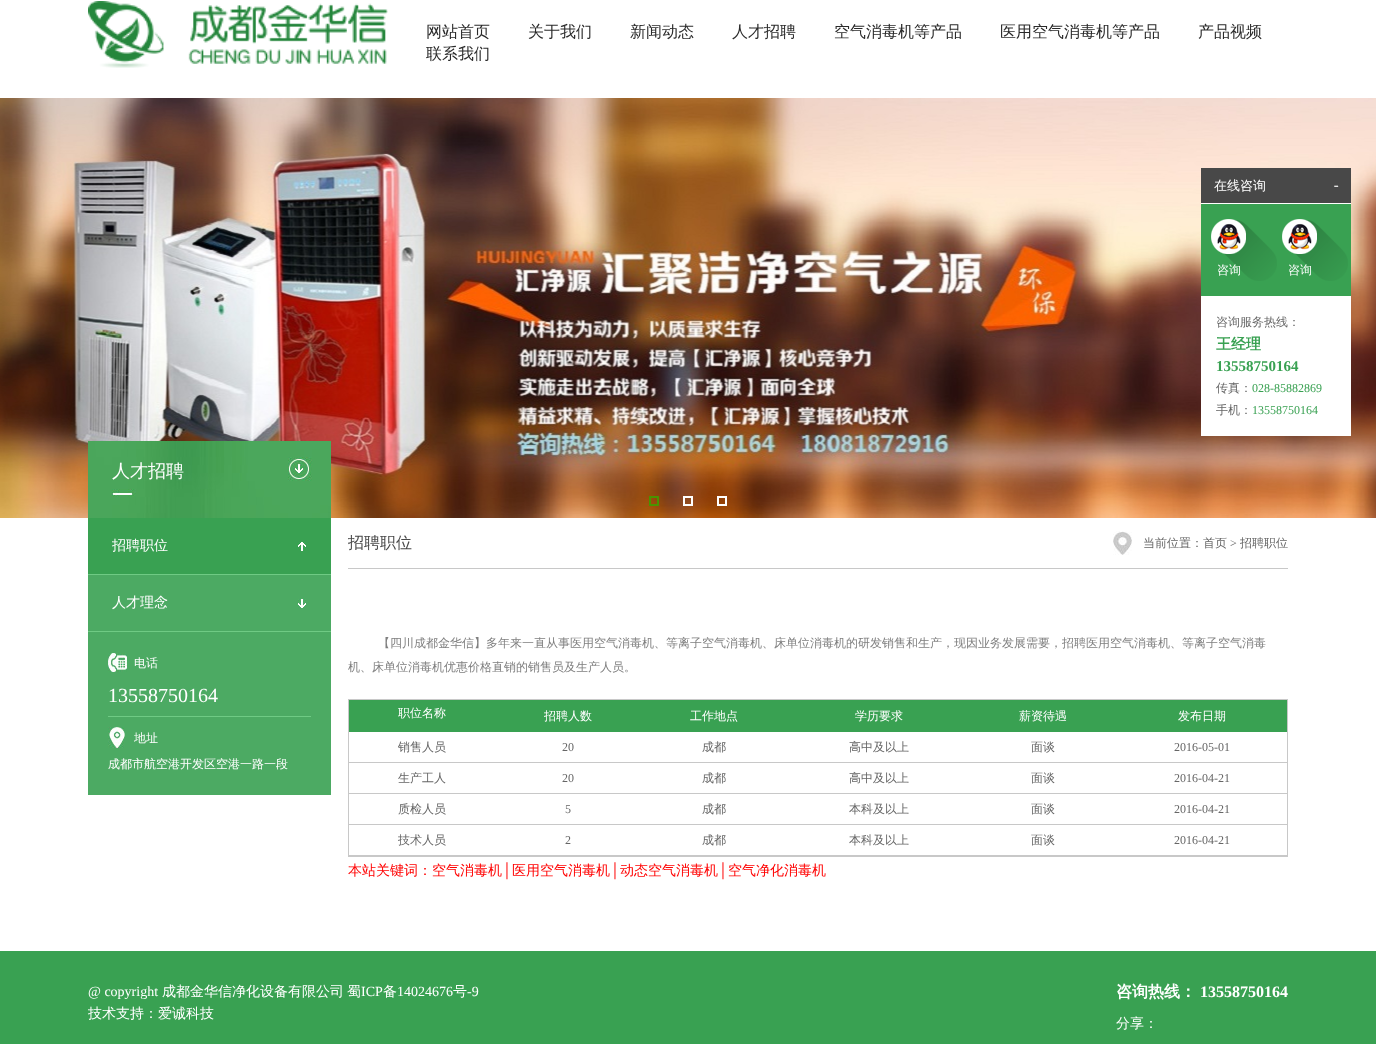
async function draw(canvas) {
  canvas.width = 1376;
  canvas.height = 1044;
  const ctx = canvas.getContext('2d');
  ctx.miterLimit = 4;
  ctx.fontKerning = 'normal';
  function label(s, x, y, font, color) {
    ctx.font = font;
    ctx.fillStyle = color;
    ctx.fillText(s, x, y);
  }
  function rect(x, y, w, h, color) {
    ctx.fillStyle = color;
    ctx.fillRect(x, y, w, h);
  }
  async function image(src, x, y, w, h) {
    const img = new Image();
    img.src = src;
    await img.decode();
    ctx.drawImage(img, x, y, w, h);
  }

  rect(0, 0, 1376, 1044, '#fff');
  await image('assets/img1.png', 88, 1, 300, 67);
  label('网站首页', 426, 37, '500 16px WenQuanYi Zen Hei', '#2a2a2a');
  label('关于我们', 528, 37, '500 16px WenQuanYi Zen Hei', '#2a2a2a');
  label('新闻动态', 630, 37, '500 16px WenQuanYi Zen Hei', '#2a2a2a');
  label('人才招聘', 732, 37, '500 16px WenQuanYi Zen Hei', '#2a2a2a');
  label('空气消毒机等产品', 834, 37, '500 16px WenQuanYi Zen Hei', '#2a2a2a');
  label('医用空气消毒机等产品', 1000, 37, '500 16px WenQuanYi Zen Hei', '#2a2a2a');
  label('产品视频', 1198, 37, '500 16px WenQuanYi Zen Hei', '#2a2a2a');
  label('联系我们', 426, 59, '500 16px WenQuanYi Zen Hei', '#2a2a2a');
  await image('assets/img2.png', 0, 98, 1376, 420);
  ctx.strokeStyle = '#499300';
  ctx.lineWidth = 2;
  ctx.strokeRect(650, 497, 8, 8);
  ctx.strokeStyle = '#fff';
  ctx.strokeRect(684, 497, 8, 8);
  ctx.strokeRect(718, 497, 8, 8);
  rect(1201, 203, 150, 233, '#fff');
  rect(1201, 168, 150, 35, '#484848');
  label('在线咨询', 1214, 190, '500 13px WenQuanYi Zen Hei', '#fff');
  label('-', 1332, 190, '14px Liberation Mono', '#fff');
  rect(1201, 204, 150, 92, '#39a152');
  await image('assets/img3.png', 1211, 219, 66, 62);
  label('咨询', 1217, 274, '500 12px WenQuanYi Zen Hei', '#fff');
  await image('assets/img3.png', 1282, 219, 66, 62);
  label('咨询', 1288, 274, '500 12px WenQuanYi Zen Hei', '#fff');
  label('咨询服务热线：', 1216, 326, '500 12px WenQuanYi Zen Hei', '#666');
  label('王经理', 1216, 349, 'bold 15px WenQuanYi Zen Hei', '#39a152');
  label('13558750164', 1216, 371, 'bold 15px Liberation Serif', '#39a152');
  label('传真：', 1216, 392, '500 12px WenQuanYi Zen Hei', '#666');
  label('028-85882869', 1252, 392, '12px Liberation Serif', '#39a152');
  label('手机：', 1216, 414, '500 12px WenQuanYi Zen Hei', '#666');
  label('13558750164', 1252, 414, '12px Liberation Serif', '#39a152');
  await image('assets/img4.png', 88, 441, 243, 77);
  label('人才招聘', 112, 477, '500 18px WenQuanYi Zen Hei', '#fff');
  rect(88, 575, 243, 56, '#4caa63');
  rect(88, 518, 243, 56, '#39a152');
  await image('assets/img5.png', 298, 542, 8, 9);
  rect(88, 574, 243, 1, '#6fca84');
  label('招聘职位', 112, 550, '500 14px WenQuanYi Zen Hei', '#fff');
  await image('assets/img6.png', 298, 599, 8, 9);
  rect(88, 631, 243, 1, '#6fca84');
  label('人才理念', 112, 607, '500 14px WenQuanYi Zen Hei', '#fff');
  rect(88, 632, 243, 163, '#4caa63');
  await image('assets/img7.png', 108, 653, 19, 19);
  label('电话', 134, 667, '500 12px WenQuanYi Zen Hei', '#fff');
  rect(108, 716, 203, 1, '#6fca84');
  label('13558750164', 108, 702, '20px Liberation Serif', '#fff');
  await image('assets/img8.png', 108, 727, 17, 21);
  label('地址', 134, 742, '500 12px WenQuanYi Zen Hei', '#fff');
  label('成都市航空港开发区空港一路一段', 108, 768, '500 12px WenQuanYi Zen Hei', '#fff');
  rect(348, 568, 940, 1, '#c8c8c8');
  label('招聘职位', 348, 548, '500 16px WenQuanYi Zen Hei', '#494949');
  await image('assets/img9.png', 1113, 531, 19, 24);
  label('当前位置：', 1143, 547, '500 12px WenQuanYi Zen Hei', '#666');
  label('首页', 1203, 547, '500 12px WenQuanYi Zen Hei', '#666');
  label('>', 1230, 547, '12px Liberation Serif', '#666');
  label('招聘职位', 1240, 547, '500 12px WenQuanYi Zen Hei', '#666');
  label('【四川成都金华信】多年来一直从事医用空气消毒机、等离子空气消毒机、床单位消毒机的研发销售和生产，现因业务发展需要，招聘医用空气消毒机、等离子空气消毒', 378, 647, '500 12px WenQuanYi Zen Hei', '#7f7f7f');
  label('机、床单位消毒机优惠价格直销的销售员及生产人员。', 348, 671, '500 12px WenQuanYi Zen Hei', '#7f7f7f');
  ctx.strokeStyle = '#c8c8c8';
  ctx.lineWidth = 1;
  ctx.strokeRect(348.5, 699.5, 939, 157);
  rect(349, 700, 938, 32, '#39a152');
  label('职位名称', 398, 717, '500 12px WenQuanYi Zen Hei', '#fff');
  label('招聘人数', 544, 720, '500 12px WenQuanYi Zen Hei', '#fff');
  label('工作地点', 690, 720, '500 12px WenQuanYi Zen Hei', '#fff');
  label('学历要求', 855, 720, '500 12px WenQuanYi Zen Hei', '#fff');
  label('薪资待遇', 1019, 720, '500 12px WenQuanYi Zen Hei', '#fff');
  label('发布日期', 1178, 720, '500 12px WenQuanYi Zen Hei', '#fff');
  rect(349, 762, 938, 1, '#c8c8c8');
  label('销售人员', 398, 751, '500 12px WenQuanYi Zen Hei', '#666');
  label('20', 562, 751, '12px Liberation Serif', '#666');
  label('成都', 702, 751, '500 12px WenQuanYi Zen Hei', '#666');
  label('高中及以上', 849, 751, '500 12px WenQuanYi Zen Hei', '#666');
  label('面谈', 1031, 751, '500 12px WenQuanYi Zen Hei', '#666');
  label('2016-05-01', 1174, 751, '12px Liberation Serif', '#666');
  rect(349, 793, 938, 1, '#c8c8c8');
  label('生产工人', 398, 782, '500 12px WenQuanYi Zen Hei', '#666');
  label('20', 562, 782, '12px Liberation Serif', '#666');
  label('成都', 702, 782, '500 12px WenQuanYi Zen Hei', '#666');
  label('高中及以上', 849, 782, '500 12px WenQuanYi Zen Hei', '#666');
  label('面谈', 1031, 782, '500 12px WenQuanYi Zen Hei', '#666');
  label('2016-04-21', 1174, 782, '12px Liberation Serif', '#666');
  rect(349, 824, 938, 1, '#c8c8c8');
  label('质检人员', 398, 813, '500 12px WenQuanYi Zen Hei', '#666');
  label('5', 565, 813, '12px Liberation Serif', '#666');
  label('成都', 702, 813, '500 12px WenQuanYi Zen Hei', '#666');
  label('本科及以上', 849, 813, '500 12px WenQuanYi Zen Hei', '#666');
  label('面谈', 1031, 813, '500 12px WenQuanYi Zen Hei', '#666');
  label('2016-04-21', 1174, 813, '12px Liberation Serif', '#666');
  rect(349, 855, 938, 1, '#c8c8c8');
  label('技术人员', 398, 844, '500 12px WenQuanYi Zen Hei', '#666');
  label('2', 565, 844, '12px Liberation Serif', '#666');
  label('成都', 702, 844, '500 12px WenQuanYi Zen Hei', '#666');
  label('本科及以上', 849, 844, '500 12px WenQuanYi Zen Hei', '#666');
  label('面谈', 1031, 844, '500 12px WenQuanYi Zen Hei', '#666');
  label('2016-04-21', 1174, 844, '12px Liberation Serif', '#666');
  label('本站关键词：空气消毒机', 348, 875, '500 14px WenQuanYi Zen Hei', '#f00');
  label('│', 502, 875, '14px Liberation Serif', '#f00');
  label('医用空气消毒机', 512, 875, '500 14px WenQuanYi Zen Hei', '#f00');
  label('│', 610, 875, '14px Liberation Serif', '#f00');
  label('动态空气消毒机', 620, 875, '500 14px WenQuanYi Zen Hei', '#f00');
  label('│', 718, 875, '14px Liberation Serif', '#f00');
  label('空气净化消毒机', 728, 875, '500 14px WenQuanYi Zen Hei', '#f00');
  rect(0, 951, 1376, 93, '#39a152');
  label('@ copyright', 88, 996, '14px Liberation Serif', '#fff');
  label('成都金华信净化设备有限公司', 162, 996, '500 14px WenQuanYi Zen Hei', '#fff');
  label('蜀', 347, 996, '500 14px WenQuanYi Zen Hei', '#fff');
  label('ICP', 361, 996, '14px Liberation Serif', '#fff');
  label('备', 383, 996, '500 14px WenQuanYi Zen Hei', '#fff');
  label('14024676', 397, 996, '14px Liberation Serif', '#fff');
  label('号', 453, 996, '500 14px WenQuanYi Zen Hei', '#fff');
  label('-9', 467, 996, '14px Liberation Serif', '#fff');
  label('技术支持：爱诚科技', 88, 1018, '500 14px WenQuanYi Zen Hei', '#fff');
  label('咨询热线：', 1116, 997, 'bold 16px WenQuanYi Zen Hei', '#fff');
  label('13558750164', 1200, 997, 'bold 16px Liberation Serif', '#fff');
  label('分享：', 1116, 1028, '500 14px WenQuanYi Zen Hei', '#fff');
}

draw(document.querySelector('canvas'));
